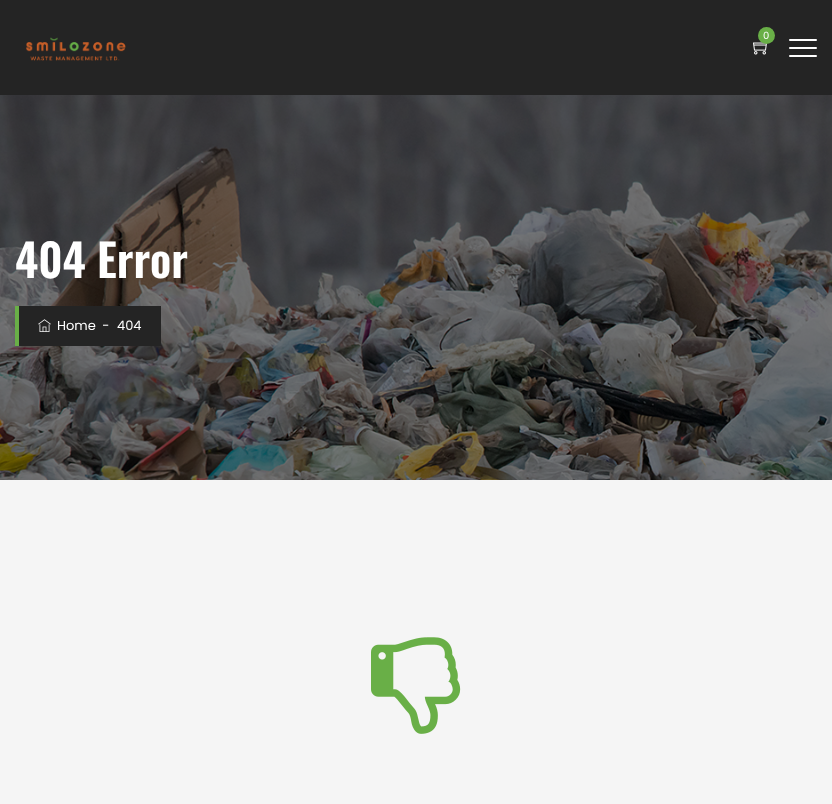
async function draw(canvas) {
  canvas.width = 832;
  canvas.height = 804;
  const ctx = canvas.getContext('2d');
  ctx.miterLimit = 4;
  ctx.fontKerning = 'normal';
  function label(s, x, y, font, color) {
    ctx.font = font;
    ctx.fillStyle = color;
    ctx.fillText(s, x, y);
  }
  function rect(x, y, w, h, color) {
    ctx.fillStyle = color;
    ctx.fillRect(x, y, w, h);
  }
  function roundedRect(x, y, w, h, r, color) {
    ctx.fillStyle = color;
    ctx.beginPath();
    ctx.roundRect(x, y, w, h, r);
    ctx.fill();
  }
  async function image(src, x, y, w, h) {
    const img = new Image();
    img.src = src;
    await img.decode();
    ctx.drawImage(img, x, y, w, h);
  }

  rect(0, 0, 832, 804, '#242424');
  await image('assets/img1.png', 753, 42, 14, 13);
  ctx.fillStyle = '#69af47';
  ctx.beginPath();
  ctx.arc(766.5, 35.5, 8.5, 0, 2 * Math.PI);
  ctx.fill();
  label('0', 763, 39, '10px Poppins', '#fff');
  roundedRect(789, 47, 28, 2, 1, '#fff');
  roundedRect(789, 39, 28, 2, 1, '#fff');
  roundedRect(789, 55, 28, 2, 1, '#fff');
  await image('assets/img2.png', 26, 37, 100, 24);
  await image('assets/img3.png', 0, 95, 832, 385);
  label('404 Error', 15, 278, '600 45px Oswald', '#fff');
  rect(19, 306, 142, 40, '#242424');
  rect(15, 306, 4, 40, '#69af47');
  await image('assets/img4.png', 38, 319, 13, 13);
  label('Home', 57, 330, '13px Poppins', '#fff');
  label('−', 102, 330, '13px Poppins', '#fff');
  label('404', 117, 330, '13px Poppins', '#fff');
  rect(0, 480, 832, 324, '#f5f5f5');
  await image('assets/img5.png', 371, 637, 90, 97);
}

draw(document.querySelector('canvas'));
